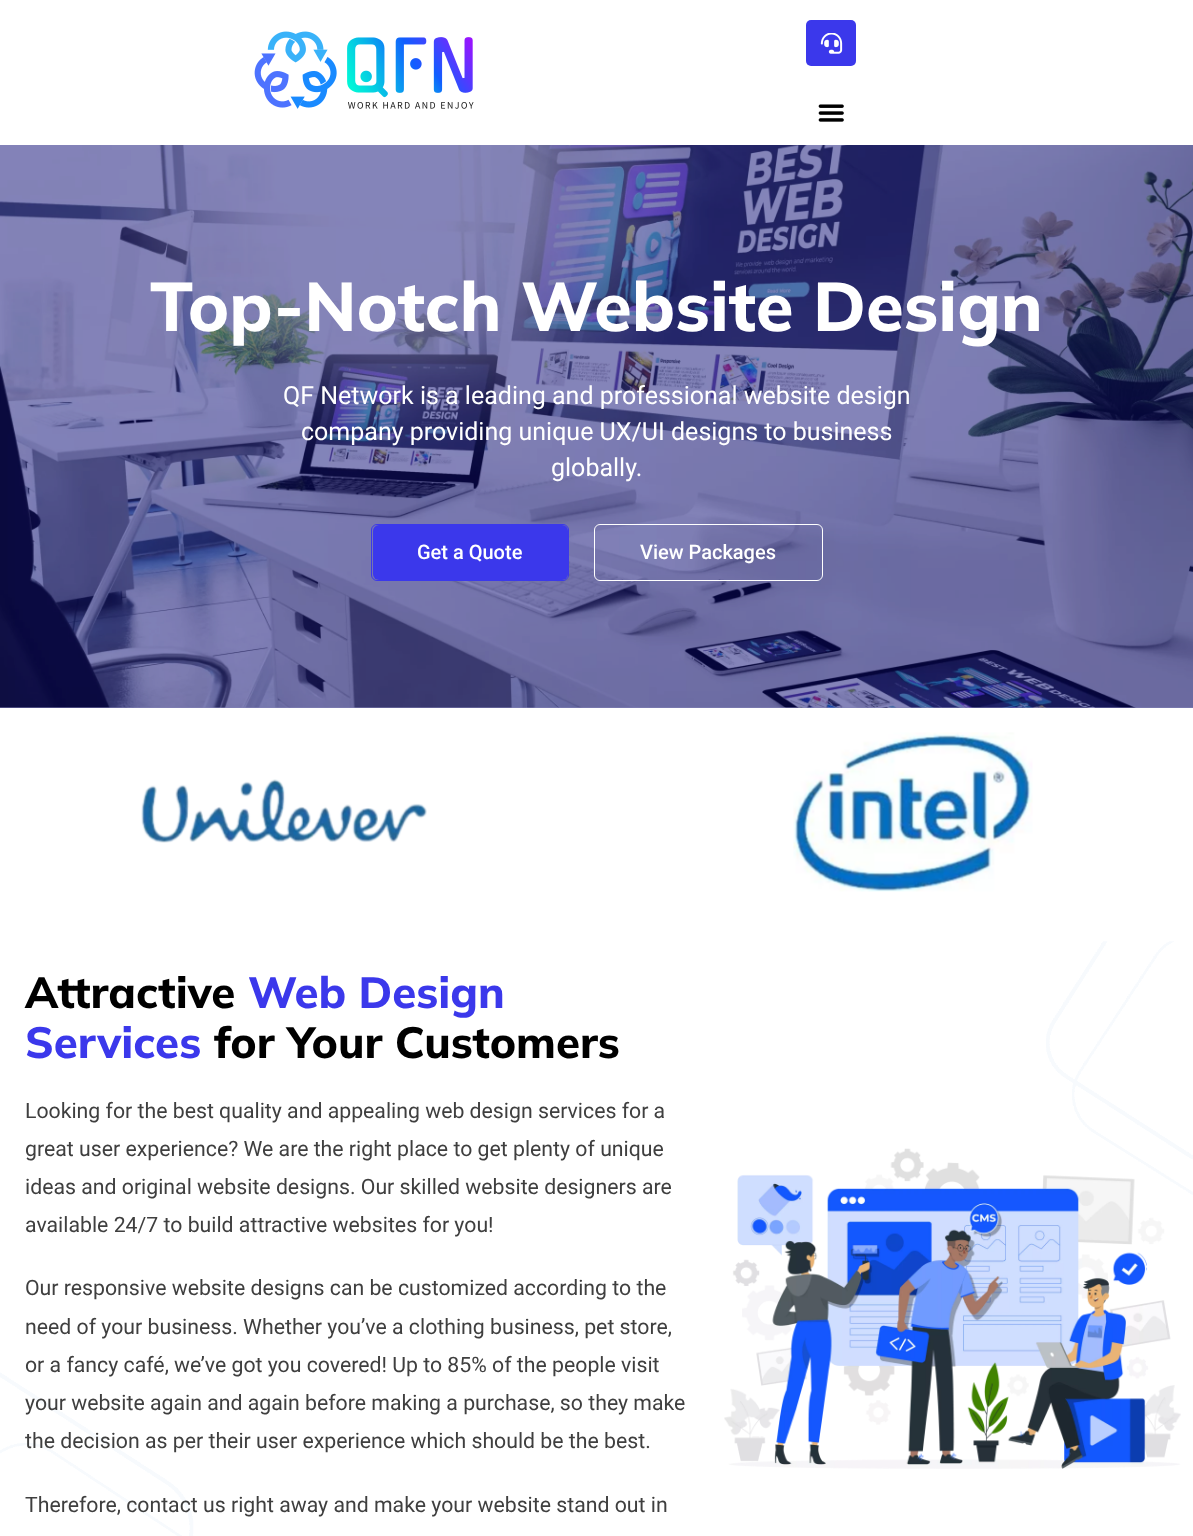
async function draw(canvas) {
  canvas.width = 1193;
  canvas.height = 1536;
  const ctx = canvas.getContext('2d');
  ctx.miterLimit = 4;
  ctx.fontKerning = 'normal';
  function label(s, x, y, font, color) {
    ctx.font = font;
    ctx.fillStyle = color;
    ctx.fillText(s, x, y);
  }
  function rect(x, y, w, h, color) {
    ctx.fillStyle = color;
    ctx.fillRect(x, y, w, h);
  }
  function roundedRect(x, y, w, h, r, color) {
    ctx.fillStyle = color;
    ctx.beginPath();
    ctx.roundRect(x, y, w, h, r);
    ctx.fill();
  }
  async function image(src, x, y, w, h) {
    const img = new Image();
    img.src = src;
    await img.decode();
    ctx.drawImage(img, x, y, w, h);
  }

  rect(0, 0, 1193, 1536, '#fff');
  rect(0, 707, 1193, 1, '#8585b9');
  await image('assets/img1.png', 254, 31, 220, 78);
  roundedRect(806, 20, 50, 46, 5, '#3b38eb');
  await image('assets/img2.png', 820, 33, 23, 21);
  await image('assets/img3.png', 818, 104, 26, 18);
  await image('assets/img4.png', 0, 145, 1193, 563);
  label('Top-Notch Website Design', 150, 331, '800 68.75px Mulish', '#fff');
  label('QF Network is a leading and professional website design', 283, 404, '25px Roboto', '#fff');
  label('company providing unique UX/UI designs to business', 301, 440, '25px Roboto', '#fff');
  label('globally.', 551, 476, '25px Roboto', '#fff');
  ctx.beginPath();
  ctx.roundRect(371.5, 524.5, 197, 56, 5.5);
  ctx.strokeStyle = '#3b38eb';
  ctx.stroke();
  roundedRect(373, 525, 195, 55, 6, '#3b38eb');
  label('Get a Quote', 417, 559, '500 20px Roboto', '#fff');
  ctx.beginPath();
  ctx.roundRect(594.5, 524.5, 228, 56, 5.5);
  ctx.strokeStyle = '#fff';
  ctx.stroke();
  label('View Packages', 640, 559, '500 20px Roboto', '#fff');
  await image('assets/img5.png', 141, 779, 286, 64);
  await image('assets/img6.png', 793, 732, 240, 160);
  await image('assets/img7.png', 0, 941, 1193, 595);
  label('Attractive', 25, 1008, '800 43.75px Mulish', '#000');
  label('Web Design', 248, 1008, '800 43.75px Mulish', '#3b38eb');
  label('Services', 25, 1058, '800 43.75px Mulish', '#3b38eb');
  label('for Your Customers', 214, 1058, '800 43.75px Mulish', '#000');
  label('Looking for the best quality and appealing web design services for a', 25, 1118, '21.25px Roboto', '#3f3f3f');
  label('great user experience? We are the right place to get plenty of unique', 25, 1156, '21.25px Roboto', '#3f3f3f');
  label('ideas and original website designs. Our skilled website designers are', 25, 1194, '21.25px Roboto', '#3f3f3f');
  label('available 24/7 to build attractive websites for you!', 25, 1232, '21.25px Roboto', '#3f3f3f');
  label('Our responsive website designs can be customized according to the', 25, 1295, '21.25px Roboto', '#3f3f3f');
  label('need of your business. Whether you’ve a clothing business, pet store,', 25, 1334, '21.25px Roboto', '#3f3f3f');
  label('or a fancy café, we’ve got you covered! Up to 85% of the people visit', 25, 1372, '21.25px Roboto', '#3f3f3f');
  label('your website again and again before making a purchase, so they make', 25, 1410, '21.25px Roboto', '#3f3f3f');
  label('the decision as per their user experience which should be the best.', 25, 1448, '21.25px Roboto', '#3f3f3f');
  label('Therefore, contact us right away and make your website stand out in', 25, 1512, '21.25px Roboto', '#3f3f3f');
  await image('assets/img8.png', 724, 1148, 457, 321);
}

draw(document.querySelector('canvas'));
